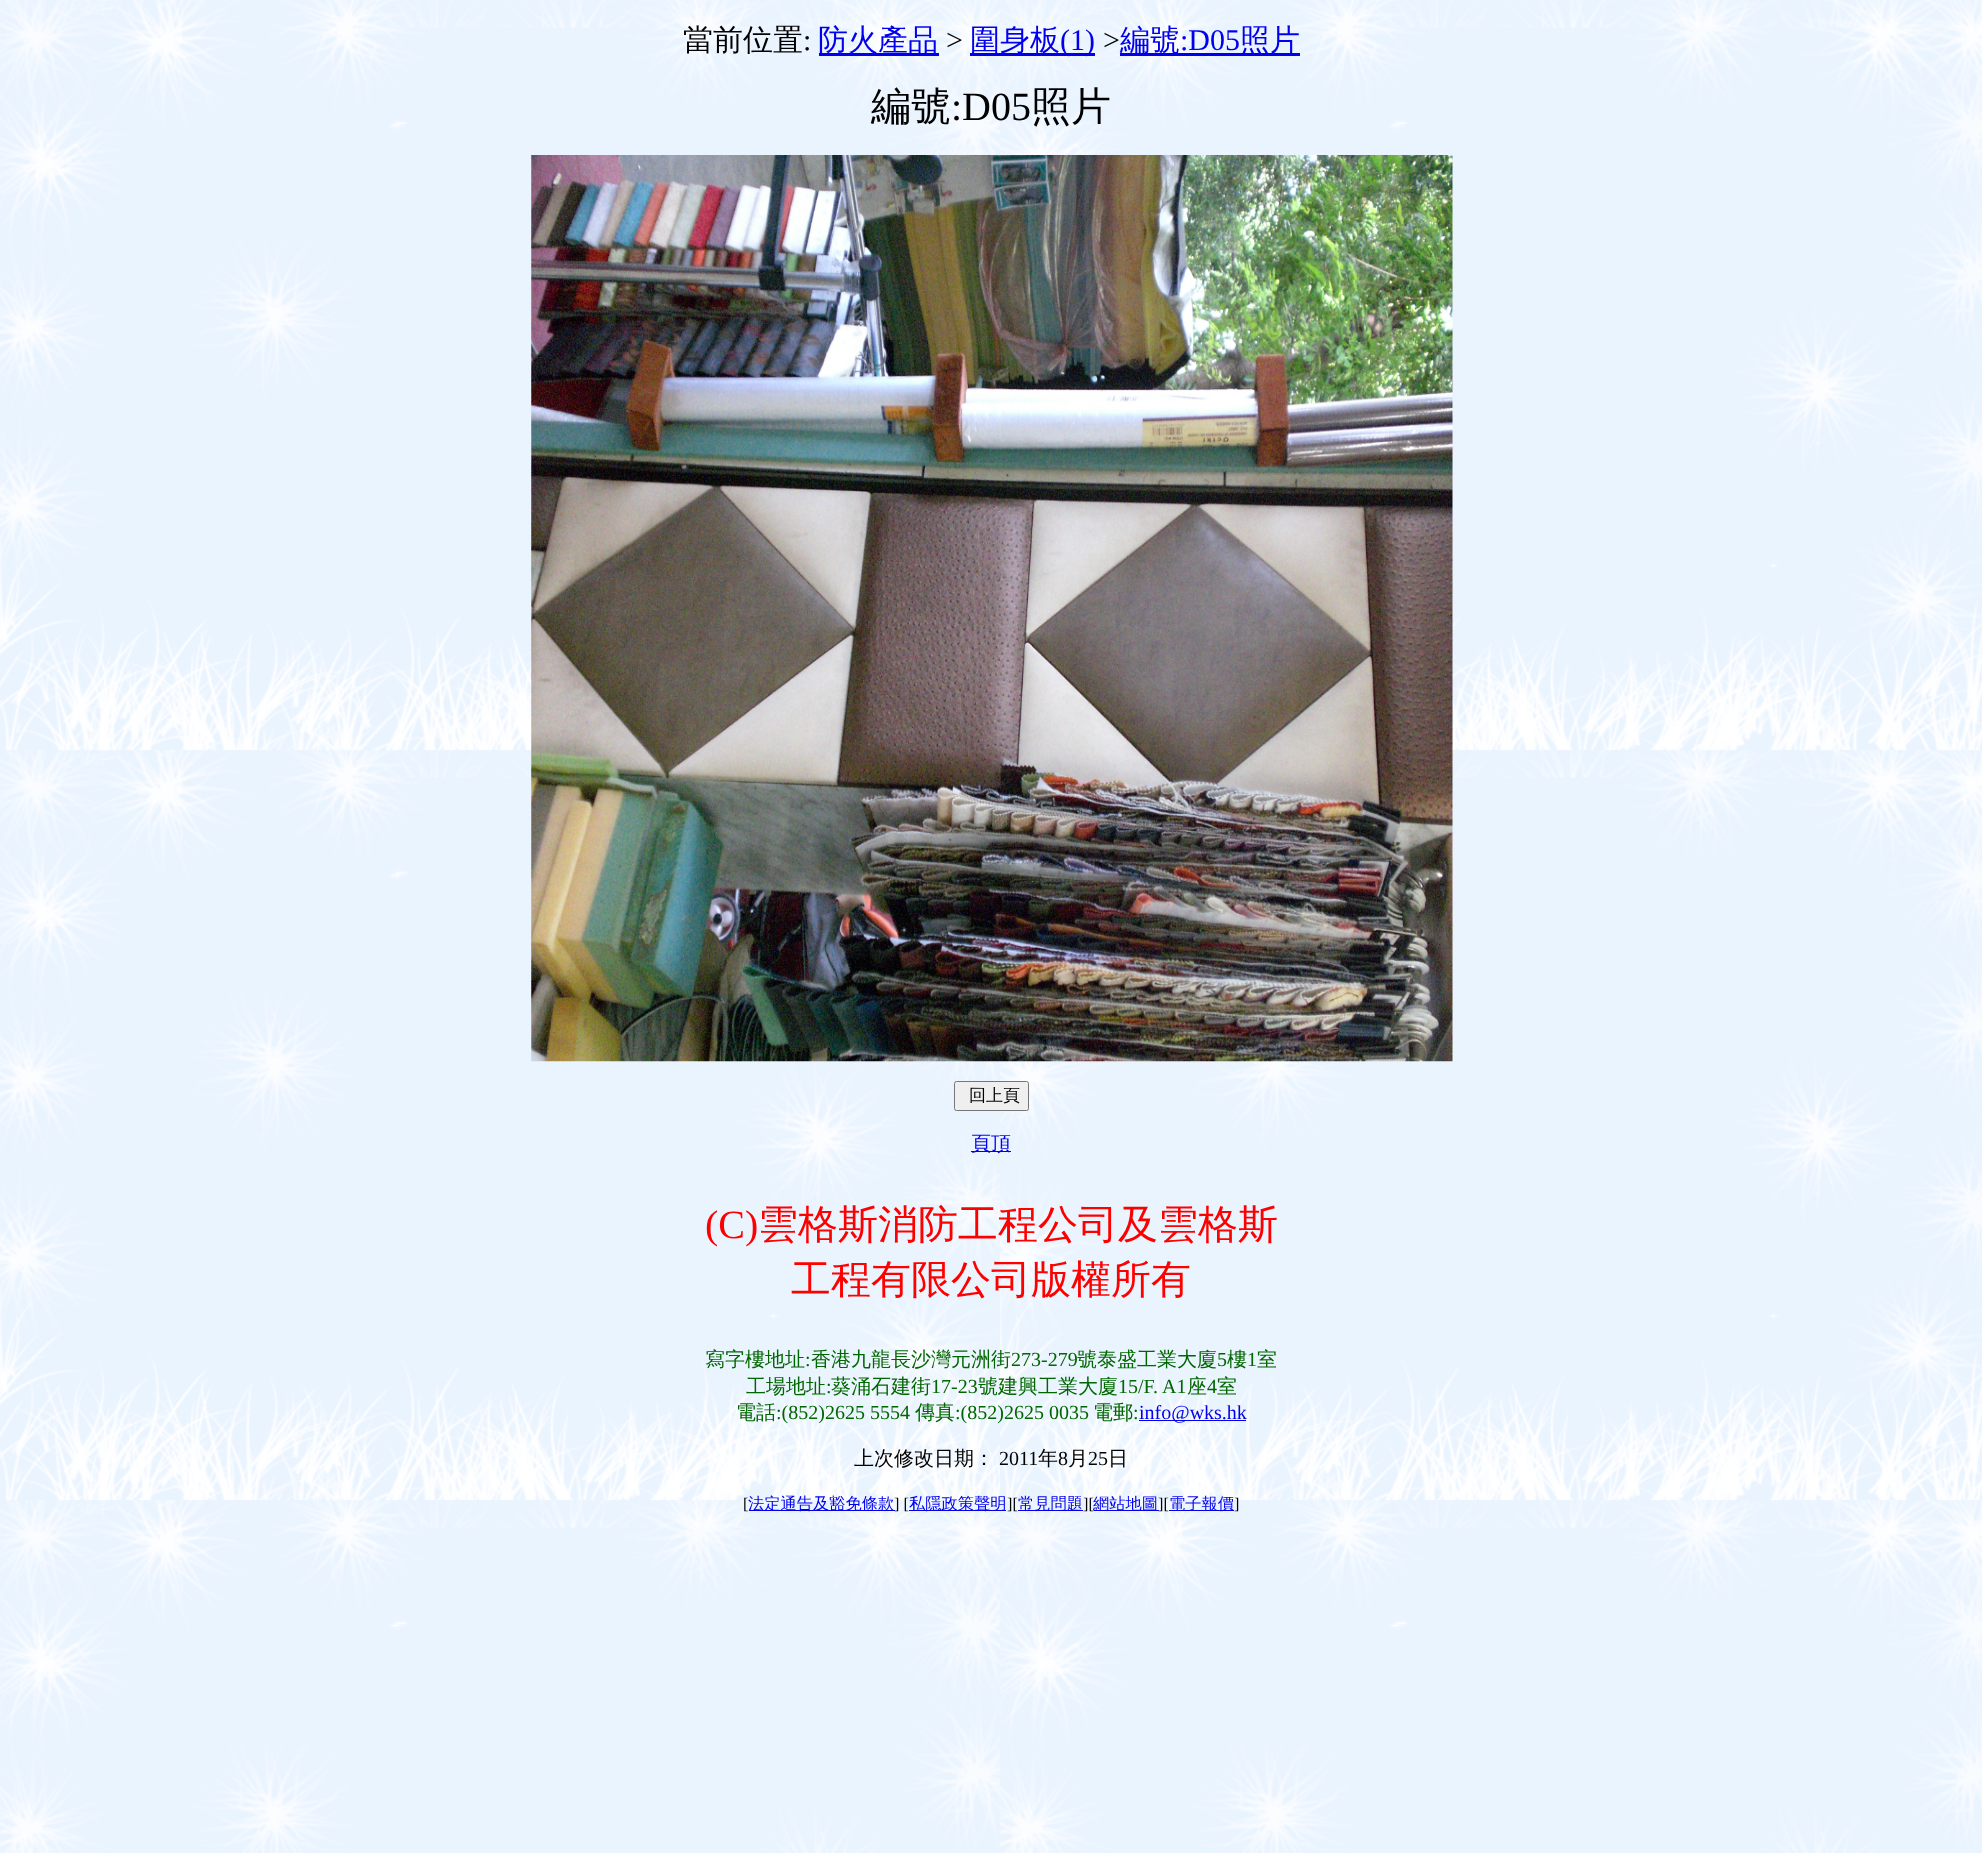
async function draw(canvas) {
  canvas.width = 1982;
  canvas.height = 1853;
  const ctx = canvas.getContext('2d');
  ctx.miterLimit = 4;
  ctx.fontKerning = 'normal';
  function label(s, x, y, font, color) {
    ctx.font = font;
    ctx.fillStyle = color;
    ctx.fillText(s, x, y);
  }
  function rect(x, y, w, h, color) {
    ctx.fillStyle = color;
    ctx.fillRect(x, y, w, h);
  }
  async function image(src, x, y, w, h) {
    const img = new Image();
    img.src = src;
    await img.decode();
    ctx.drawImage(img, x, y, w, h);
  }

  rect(0, 0, 1982, 1853, '#fff');
  await image('assets/img1.png', 0, 0, 1982, 1853);
  label('當前位置', 683, 50, '500 30px WenQuanYi Zen Hei', '#000');
  label(':', 803, 50, '30px Liberation Serif', '#000');
  rect(819, 53, 120, 3, '#00e');
  label('防火產品', 818, 50, '500 30px WenQuanYi Zen Hei', '#00e');
  label('>', 946, 50, '30px Liberation Serif', '#000');
  rect(970, 53, 125, 3, '#00e');
  label('圍身板', 970, 50, '500 30px WenQuanYi Zen Hei', '#00e');
  label('(1)', 1060, 50, '30px Liberation Serif', '#00e');
  label('>', 1103, 50, '30px Liberation Serif', '#000');
  rect(1120, 53, 180, 3, '#00e');
  label('編號', 1120, 50, '500 30px WenQuanYi Zen Hei', '#00e');
  label(':D05', 1180, 50, '30px Liberation Serif', '#00e');
  label('照片', 1240, 50, '500 30px WenQuanYi Zen Hei', '#00e');
  label('編號', 871, 120, '500 40px WenQuanYi Zen Hei', '#000');
  label(':D05', 951, 120, '40px Liberation Serif', '#000');
  label('照片', 1031, 120, '500 40px WenQuanYi Zen Hei', '#000');
  await image('assets/img2.png', 531, 155, 922, 907);
  ctx.fillStyle = '#efefef';
  ctx.beginPath();
  ctx.roundRect(954.5, 1081.5, 74, 29, 2);
  ctx.fill();
  ctx.strokeStyle = '#767676';
  ctx.stroke();
  label('回上頁', 969, 1101, '500 17px WenQuanYi Zen Hei', '#000');
  rect(971, 1151, 40, 1, '#00e');
  label('頁頂', 971, 1150, '500 20px WenQuanYi Zen Hei', '#00e');
  label('(C)', 705, 1238, '40px Liberation Serif', '#f00');
  label('雲格斯消防工程公司及雲格斯', 758, 1238, '500 40px WenQuanYi Zen Hei', '#f00');
  label('工程有限公司版權所有', 791, 1293, '500 40px WenQuanYi Zen Hei', '#f00');
  label('寫字樓地址', 705, 1366, '500 20px WenQuanYi Zen Hei', '#060');
  label(':', 805, 1366, '20px Liberation Serif', '#060');
  label('香港九龍長沙灣元洲街', 811, 1366, '500 20px WenQuanYi Zen Hei', '#060');
  label('273-279', 1011, 1366, '20px Liberation Serif', '#060');
  label('號泰盛工業大廈', 1077, 1366, '500 20px WenQuanYi Zen Hei', '#060');
  label('5', 1217, 1366, '20px Liberation Serif', '#060');
  label('樓', 1227, 1366, '500 20px WenQuanYi Zen Hei', '#060');
  label('1', 1247, 1366, '20px Liberation Serif', '#060');
  label('室', 1257, 1366, '500 20px WenQuanYi Zen Hei', '#060');
  label('工場地址', 746, 1393, '500 20px WenQuanYi Zen Hei', '#060');
  label(':', 826, 1393, '20px Liberation Serif', '#060');
  label('葵涌石建街', 831, 1393, '500 20px WenQuanYi Zen Hei', '#060');
  label('17-23', 931, 1393, '20px Liberation Serif', '#060');
  label('號建興工業大廈', 978, 1393, '500 20px WenQuanYi Zen Hei', '#060');
  label('15/F. A1', 1118, 1393, '20px Liberation Serif', '#060');
  label('座', 1187, 1393, '500 20px WenQuanYi Zen Hei', '#060');
  label('4', 1207, 1393, '20px Liberation Serif', '#060');
  label('室', 1217, 1393, '500 20px WenQuanYi Zen Hei', '#060');
  label('電話', 736, 1419, '500 20px WenQuanYi Zen Hei', '#060');
  label(':(852)2625 5554', 776, 1419, '20px Liberation Serif', '#060');
  label('傳真', 915, 1419, '500 20px WenQuanYi Zen Hei', '#060');
  label(':(852)2625 0035', 955, 1419, '20px Liberation Serif', '#060');
  label('電郵', 1093, 1419, '500 20px WenQuanYi Zen Hei', '#060');
  label(':', 1133, 1419, '20px Liberation Serif', '#060');
  rect(1139, 1420, 107, 1, '#00e');
  label('info@wks.hk', 1139, 1419, '20px Liberation Serif', '#00e');
  label('上次修改日期：', 854, 1465, '500 20px WenQuanYi Zen Hei', '#000');
  label('2011', 999, 1465, '20px Liberation Serif', '#000');
  label('年', 1038, 1465, '500 20px WenQuanYi Zen Hei', '#000');
  label('8', 1058, 1465, '20px Liberation Serif', '#000');
  label('月', 1068, 1465, '500 20px WenQuanYi Zen Hei', '#000');
  label('25', 1088, 1465, '20px Liberation Serif', '#000');
  label('日', 1108, 1465, '500 20px WenQuanYi Zen Hei', '#000');
  label('[', 743, 1509, '16.25px Liberation Serif', '#000');
  rect(749, 1510, 146, 1, '#00e');
  label('法定通告及豁免條款', 748, 1509, '500 16.25px WenQuanYi Zen Hei', '#00e');
  label('] [', 894, 1509, '16.25px Liberation Serif', '#000');
  rect(909, 1510, 97, 1, '#00e');
  label('私隱政策聲明', 909, 1509, '500 16.25px WenQuanYi Zen Hei', '#00e');
  label('][', 1007, 1509, '16.25px Liberation Serif', '#000');
  rect(1018, 1510, 65, 1, '#00e');
  label('常見問題', 1018, 1509, '500 16.25px WenQuanYi Zen Hei', '#00e');
  label('][', 1083, 1509, '16.25px Liberation Serif', '#000');
  rect(1094, 1510, 65, 1, '#00e');
  label('網站地圖', 1093, 1509, '500 16.25px WenQuanYi Zen Hei', '#00e');
  label('][', 1158, 1509, '16.25px Liberation Serif', '#000');
  rect(1169, 1510, 65, 1, '#00e');
  label('電子報價', 1169, 1509, '500 16.25px WenQuanYi Zen Hei', '#00e');
  label(']', 1234, 1509, '16.25px Liberation Serif', '#000');
}

draw(document.querySelector('canvas'));
